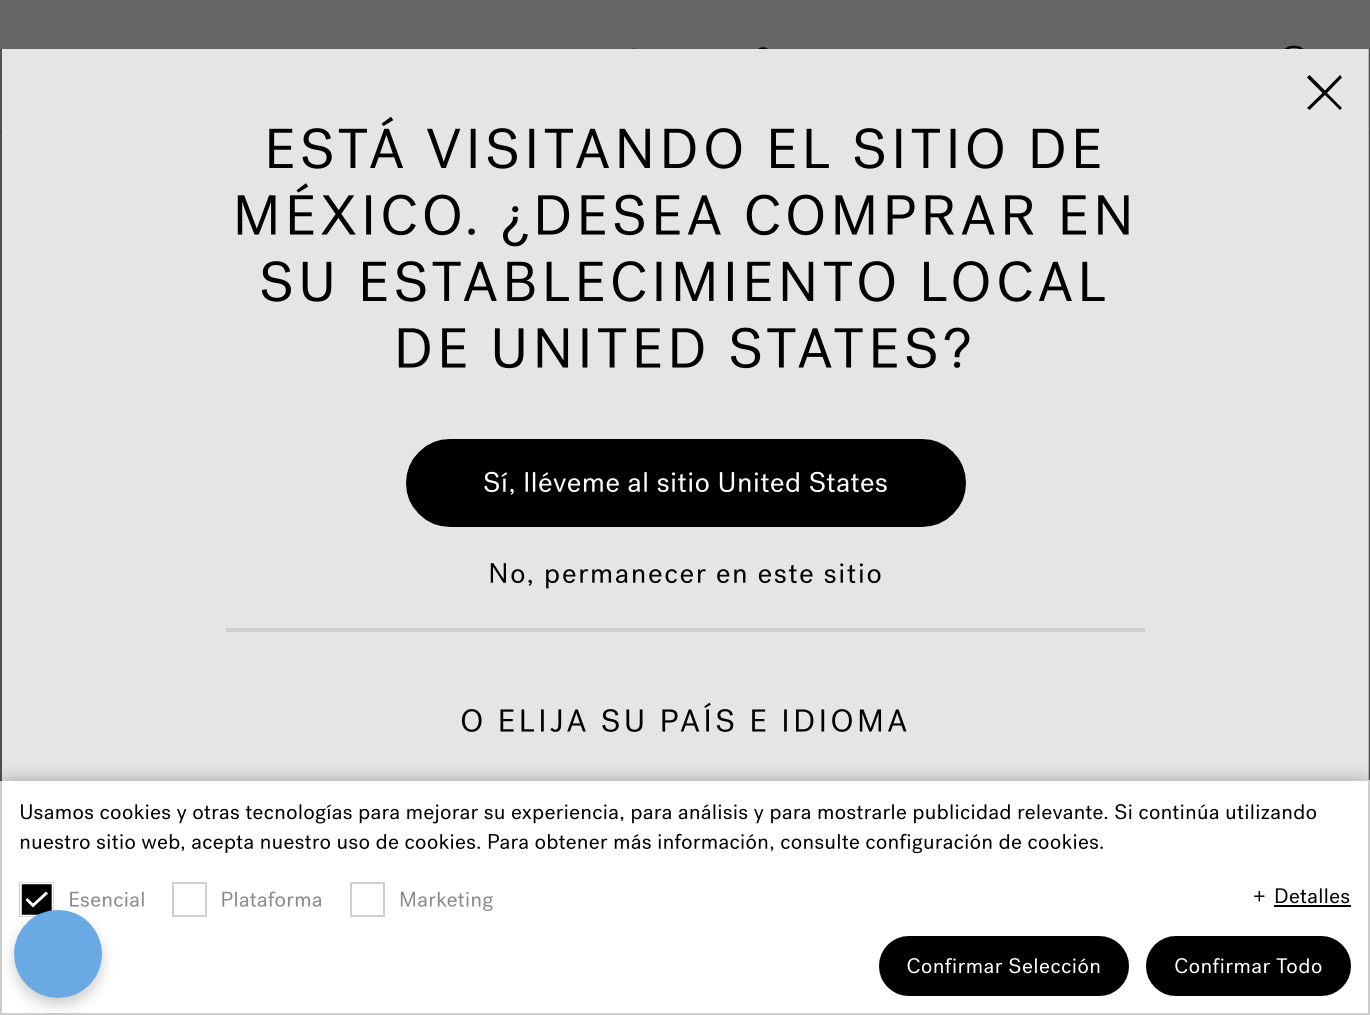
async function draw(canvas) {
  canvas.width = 1370;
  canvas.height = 1015;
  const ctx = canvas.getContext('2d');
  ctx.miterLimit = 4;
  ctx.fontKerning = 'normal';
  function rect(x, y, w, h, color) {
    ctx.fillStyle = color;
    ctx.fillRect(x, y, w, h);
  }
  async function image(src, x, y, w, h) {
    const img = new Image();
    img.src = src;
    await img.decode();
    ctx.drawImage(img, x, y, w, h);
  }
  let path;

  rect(0, 0, 1370, 1015, '#626262');
  rect(0, 0, 1370, 131, '#666');
  rect(0, 131, 1370, 2, '#535352');
  await image('assets/img1.png', 630, 47, 138, 2);
  await image('assets/img2.png', 1284, 45, 20, 4);
  rect(2, 49, 1367, 732, '#e5e5e5');
  ctx.fillStyle = '#00000033';
  path = new Path2D('M1370 49V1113L1368 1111V49Z');
  ctx.fill(path);
  path = new Path2D('M0 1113V49H2V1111Z');
  ctx.fill(path);
  ctx.fillStyle = '#000';
  path = new Path2D('M1342 77.5L1340 75L1325 90.5L1309.5 75L1307 77.5L1322.5 93L1307 108L1309.5 110L1325 95L1340 110L1342 108L1327 93Z');
  ctx.fill(path, 'evenodd');
  await image('assets/img3.png', 269, 116, 831, 53);
  await image('assets/img4.png', 237, 183, 892, 64);
  await image('assets/img5.png', 261, 261, 844, 41);
  await image('assets/img6.png', 398, 327, 572, 42);
  ctx.beginPath();
  ctx.roundRect(407, 440, 558, 86, 43);
  ctx.fill();
  ctx.strokeStyle = '#000';
  ctx.lineWidth = 2;
  ctx.stroke();
  await image('assets/img7.png', 484, 471, 403, 24);
  await image('assets/img8.png', 490, 563, 391, 26);
  rect(226, 628, 919, 4, '#cfcfcd');
  await image('assets/img9.png', 461, 702, 446, 30);
  ctx.fillStyle = '#0000004d';
  ctx.filter = 'blur(9px)';
  ctx.beginPath();
  ctx.rect(0, 781, 1370, 234);
  ctx.fill();
  ctx.filter = 'none';
  rect(0, 781, 1370, 234, '#fff');
  ctx.fillStyle = '#ccc';
  path = new Path2D('M1370 780V1015L1368 1013V780Z');
  ctx.fill(path);
  ctx.fillStyle = '#00000033';
  path = new Path2D('M1370 1015H0L2 1013H1368Z');
  ctx.fill(path);
  path = new Path2D('M0 1015V780H2V1013Z');
  ctx.fill(path);
  await image('assets/img10.png', 21, 804, 1296, 20);
  await image('assets/img11.png', 20, 833, 1083, 21);
  ctx.strokeStyle = '#cfcfcd';
  ctx.strokeRect(20, 883, 33, 33);
  rect(21, 884, 31, 31, '#000');
  path = new Path2D('M21 883.5H52.5V915.5H21Z');
  ctx.strokeStyle = '#fff';
  ctx.lineWidth = 1.6;
  ctx.stroke(path);
  ctx.fillStyle = '#fff';
  path = new Path2D('M25.5 900L33 907.5L48 893.5L46 891.5L33 903.5L27.5 898Z');
  ctx.fill(path);
  await image('assets/img12.png', 70, 891, 74, 16);
  ctx.strokeStyle = '#cfcfcd';
  ctx.lineWidth = 2;
  ctx.strokeRect(173, 883, 33, 33);
  await image('assets/img13.png', 222, 891, 100, 16);
  ctx.strokeRect(351, 883, 33, 33);
  await image('assets/img14.png', 400, 891, 93, 20);
  await image('assets/img15.png', 1254, 891, 11, 11);
  await image('assets/img16.png', 1275, 888, 75, 16);
  rect(1274, 905, 77, 2, '#000');
  ctx.beginPath();
  ctx.roundRect(880, 937, 248, 58, 29);
  ctx.fill();
  ctx.strokeStyle = '#000';
  ctx.stroke();
  await image('assets/img17.png', 907, 958, 193, 16);
  ctx.beginPath();
  ctx.roundRect(1147, 937, 203, 58, 29);
  ctx.fill();
  ctx.stroke();
  await image('assets/img18.png', 1175, 958, 147, 16);
  ctx.fillStyle = '#00000033';
  ctx.filter = 'blur(7px)';
  ctx.beginPath();
  ctx.roundRect(14, 917, 88, 88, 44);
  ctx.fill();
  ctx.filter = 'none';
  ctx.fillStyle = '#6aaae4';
  ctx.beginPath();
  ctx.arc(58, 954, 44, 0, 2 * Math.PI);
  ctx.fill();
}

draw(document.querySelector('canvas'));
